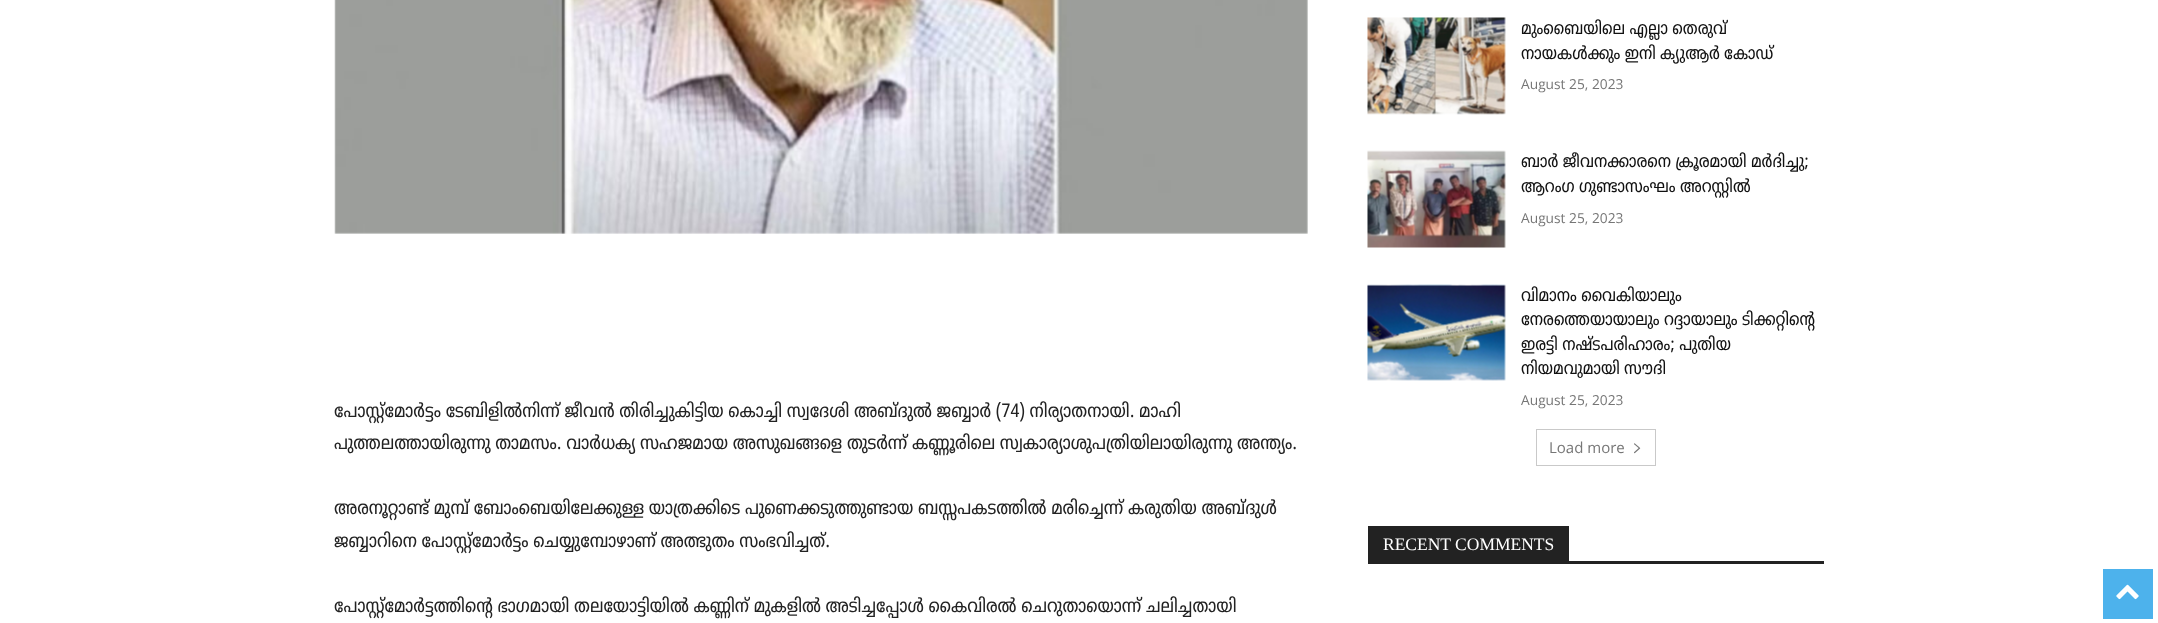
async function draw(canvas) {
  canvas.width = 2158;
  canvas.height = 623;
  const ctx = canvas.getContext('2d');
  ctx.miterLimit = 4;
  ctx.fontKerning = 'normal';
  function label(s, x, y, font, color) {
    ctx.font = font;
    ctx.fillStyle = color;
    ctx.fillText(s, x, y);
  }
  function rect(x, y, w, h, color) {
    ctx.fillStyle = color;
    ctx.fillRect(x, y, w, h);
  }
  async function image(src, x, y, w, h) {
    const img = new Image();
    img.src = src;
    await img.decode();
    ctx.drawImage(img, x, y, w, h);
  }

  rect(0, 0, 2158, 623, '#fff');
  await image('assets/img1.png', 334, 0, 974, 234);
  label('പോസ്റ്റ്മോർട്ടം ടേബിളിൽനിന്ന്‌ ജീവൻ തിരിച്ചുകിട്ടിയ കൊച്ചി സ്വദേശി അബ്ദുൽ ജബ്ബാർ (74) നിര്യാതനായി. മാഹി', 334, 417, '18.75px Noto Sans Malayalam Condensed', '#222');
  label('പുത്തലത്തായിരുന്നു താമസം. വാർധക്യ സഹജമായ അസുഖങ്ങളെ തുടർന്ന് കണ്ണൂരിലെ സ്വകാര്യാശുപത്രിയിലായിരുന്നു അന്ത്യം.', 334, 449, '18.75px Noto Sans Malayalam Condensed', '#222');
  label('അരനൂറ്റാണ്ട് മുമ്പ് ബോംബെയിലേക്കുള്ള യാത്രക്കിടെ പുണെക്കടുത്തുണ്ടായ ബസ്സപകടത്തിൽ മരിച്ചെന്ന്‌ കരുതിയ അബ്ദുൾ', 334, 514, '18.75px Noto Sans Malayalam Condensed', '#222');
  label('ജബ്ബാറിനെ പോസ്റ്റ്മോർട്ടം ചെയ്യുമ്പോഴാണ് അത്ഭുതം സംഭവിച്ചത്.', 334, 547, '18.75px Noto Sans Malayalam Condensed', '#222');
  label('പോസ്റ്റ്മോർട്ടത്തിന്റെ ഭാഗമായി തലയോട്ടിയിൽ കണ്ണിന് മുകളിൽ അടിച്ചപ്പോൾ കൈവിരൽ ചെറുതായൊന്ന് ചലിച്ചതായി', 334, 612, '18.75px Noto Sans Malayalam Condensed', '#222');
  await image('assets/img2.png', 1367, 17, 139, 98);
  label('മുംബൈയിലെ എല്ലാ തെരുവ്', 1521, 34, '17.5px Noto Sans Malayalam Condensed', '#111');
  label('നായകൾക്കും ഇനി ക്യുആർ കോഡ്', 1521, 59, '17.5px Noto Sans Malayalam Condensed', '#111');
  label('August 25, 2023', 1521, 89, '13.75px Open Sans', '#767676');
  await image('assets/img3.png', 1367, 150, 139, 98);
  label('ബാർ ജീവനക്കാരനെ ക്രൂരമായി മർദിച്ചു;', 1521, 167, '17.5px Noto Sans Malayalam Condensed', '#111');
  label('ആറംഗ ഗുണ്ടാസംഘം അറസ്റ്റിൽ', 1521, 192, '17.5px Noto Sans Malayalam Condensed', '#111');
  label('August 25, 2023', 1521, 223, '13.75px Open Sans', '#767676');
  await image('assets/img4.png', 1367, 284, 139, 97);
  label('വിമാനം വൈകിയാലും', 1521, 301, '17.5px Noto Sans Malayalam Condensed', '#111');
  label('നേരത്തെയായാലും റദ്ദായാലും ടിക്കറ്റിന്റെ', 1521, 325, '17.5px Noto Sans Malayalam Condensed', '#111');
  label('ഇരട്ടി നഷ്ടപരിഹാരം; പുതിയ', 1521, 350, '17.5px Noto Sans Malayalam Condensed', '#111');
  label('നിയമവുമായി സൗദി', 1521, 374, '17.5px Noto Sans Malayalam Condensed', '#111');
  label('August 25, 2023', 1521, 405, '13.75px Open Sans', '#767676');
  ctx.strokeStyle = '#c9c9c9';
  ctx.strokeRect(1536.5, 429.5, 119, 36);
  label('Load more', 1549, 453, '15px Open Sans', '#767676');
  await image('assets/img5.png', 1634, 443, 7, 11);
  rect(1368, 561, 456, 3, '#222');
  rect(1368, 526, 201, 35, '#222');
  label('RECENT COMMENTS', 1383, 550, '17.5px Liberation Serif', '#fff');
  rect(2103, 569, 50, 50, '#4db2ec');
  await image('assets/img6.png', 2116, 584, 23, 16);
}

draw(document.querySelector('canvas'));
